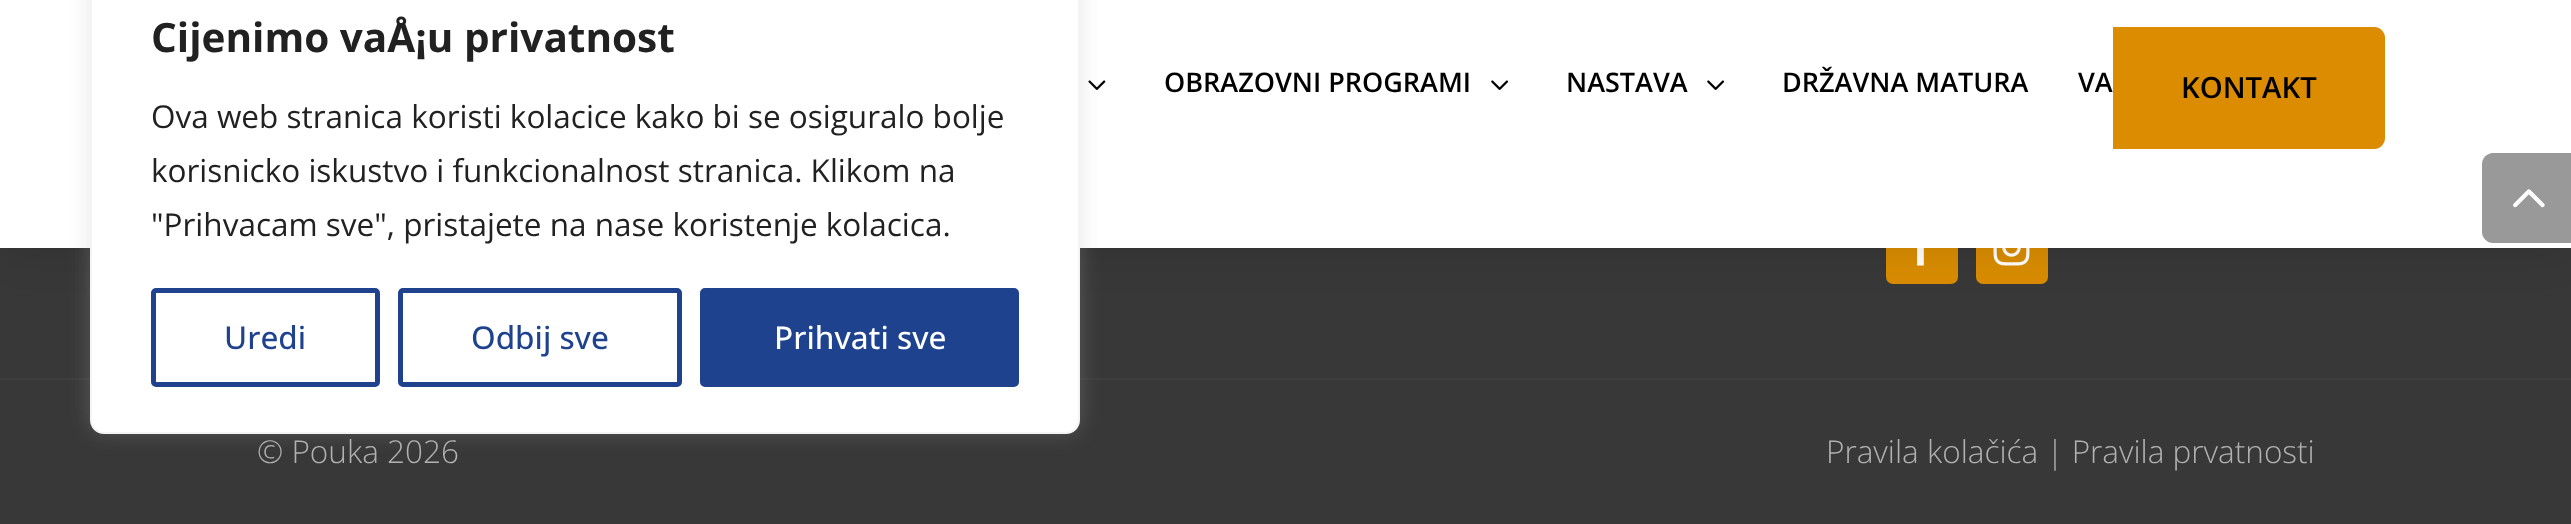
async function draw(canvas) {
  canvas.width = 2571;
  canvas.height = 524;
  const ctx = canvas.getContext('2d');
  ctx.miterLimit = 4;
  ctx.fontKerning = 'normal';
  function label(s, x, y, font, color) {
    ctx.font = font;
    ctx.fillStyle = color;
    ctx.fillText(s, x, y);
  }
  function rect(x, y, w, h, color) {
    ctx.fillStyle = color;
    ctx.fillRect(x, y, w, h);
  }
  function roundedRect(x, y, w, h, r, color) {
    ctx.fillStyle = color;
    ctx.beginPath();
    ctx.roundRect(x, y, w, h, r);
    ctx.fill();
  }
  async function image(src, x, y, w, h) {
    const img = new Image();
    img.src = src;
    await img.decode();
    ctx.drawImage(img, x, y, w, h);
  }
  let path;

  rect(0, 0, 2571, 524, '#383838');
  roundedRect(1886, 212, 72, 72, 7, '#d98c02');
  await image('assets/img3.png', 1917, 248, 7, 18);
  roundedRect(1976, 212, 72, 72, 7, '#d98c02');
  await image('assets/img4.png', 1993, 248, 37, 18);
  ctx.fillStyle = '#0000001a';
  ctx.filter = 'blur(20px)';
  ctx.beginPath();
  ctx.rect(0, 5, 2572, 247);
  ctx.fill();
  ctx.filter = 'none';
  rect(0, 0, 2571, 248, '#fff');
  await image('assets/img1.png', 1088, 80, 18, 10);
  rect(0, 378, 2571, 2, '#3e3e3e');
  ctx.fillStyle = '#acabab4d';
  ctx.filter = 'blur(11px)';
  ctx.beginPath();
  ctx.roundRect(90, -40, 990, 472, 14);
  ctx.fill();
  ctx.filter = 'none';
  ctx.fillStyle = '#fff';
  ctx.beginPath();
  ctx.roundRect(91, -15, 988, 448, 13);
  ctx.fill();
  ctx.strokeStyle = '#f4f4f4';
  ctx.lineWidth = 2;
  ctx.stroke();
  label('Cijenimo vaÅ¡u privatnost', 151, 52, 'bold 40.5px Open Sans', '#212121');
  label('Ova web stranica koristi kolacice kako bi se osiguralo bolje', 151, 128, '31.5px Open Sans', '#212121');
  label('korisnicko iskustvo i funkcionalnost stranica. Klikom na', 151, 182, '31.5px Open Sans', '#212121');
  label('"Prihvacam sve", pristajete na nase koristenje kolacica.', 151, 236, '31.5px Open Sans', '#212121');
  ctx.beginPath();
  ctx.roundRect(153.5, 290.5, 224, 94, 2.5);
  ctx.strokeStyle = '#1e428e';
  ctx.lineWidth = 5;
  ctx.stroke();
  label('Uredi', 224, 349, '500 31.5px Open Sans', '#1e428e');
  ctx.beginPath();
  ctx.roundRect(400.5, 290.5, 279, 94, 2.5);
  ctx.stroke();
  label('Odbij sve', 471, 349, '500 31.5px Open Sans', '#1e428e');
  ctx.beginPath();
  ctx.roundRect(702.5, 290.5, 314, 94, 2.5);
  ctx.fill();
  ctx.stroke();
  label('Prihvati sve', 774, 349, '500 31.5px Open Sans', '#fff');
  label('OBRAZOVNI PROGRAMI', 1164, 92, '600 27px Open Sans', '#000');
  await image('assets/img2.png', 1491, 80, 17, 10);
  label('NASTAVA', 1566, 92, '600 27px Open Sans', '#000');
  await image('assets/img2.png', 1707, 80, 17, 10);
  label('DRŽAVNA MATURA', 1782, 92, '600 27px Open Sans', '#000');
  label('VA', 2078, 92, '600 27px Open Sans', '#000');
  ctx.fillStyle = '#db8c00';
  ctx.beginPath();
  ctx.roundRect(2113, 27, 272, 122, [0, 11, 11, 0]);
  ctx.fill();
  label('KONTAKT', 2181, 98, '600 29.25px Open Sans', '#000');
  label('© Pouka 2026', 257, 463, '300 31.5px Open Sans', '#b1b1b1');
  label('Pravila kolačića | Pravila prvatnosti', 1826, 463, '300 31.5px Open Sans', '#b1b1b1');
  ctx.fillStyle = '#999';
  path = new Path2D('M2493 153H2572V243H2493C2487 243 2482 238 2482 232V164C2482 158 2487 153 2493 153Z');
  ctx.fill(path);
  await image('assets/img5.png', 2513, 189, 32, 19);
}

draw(document.querySelector('canvas'));
